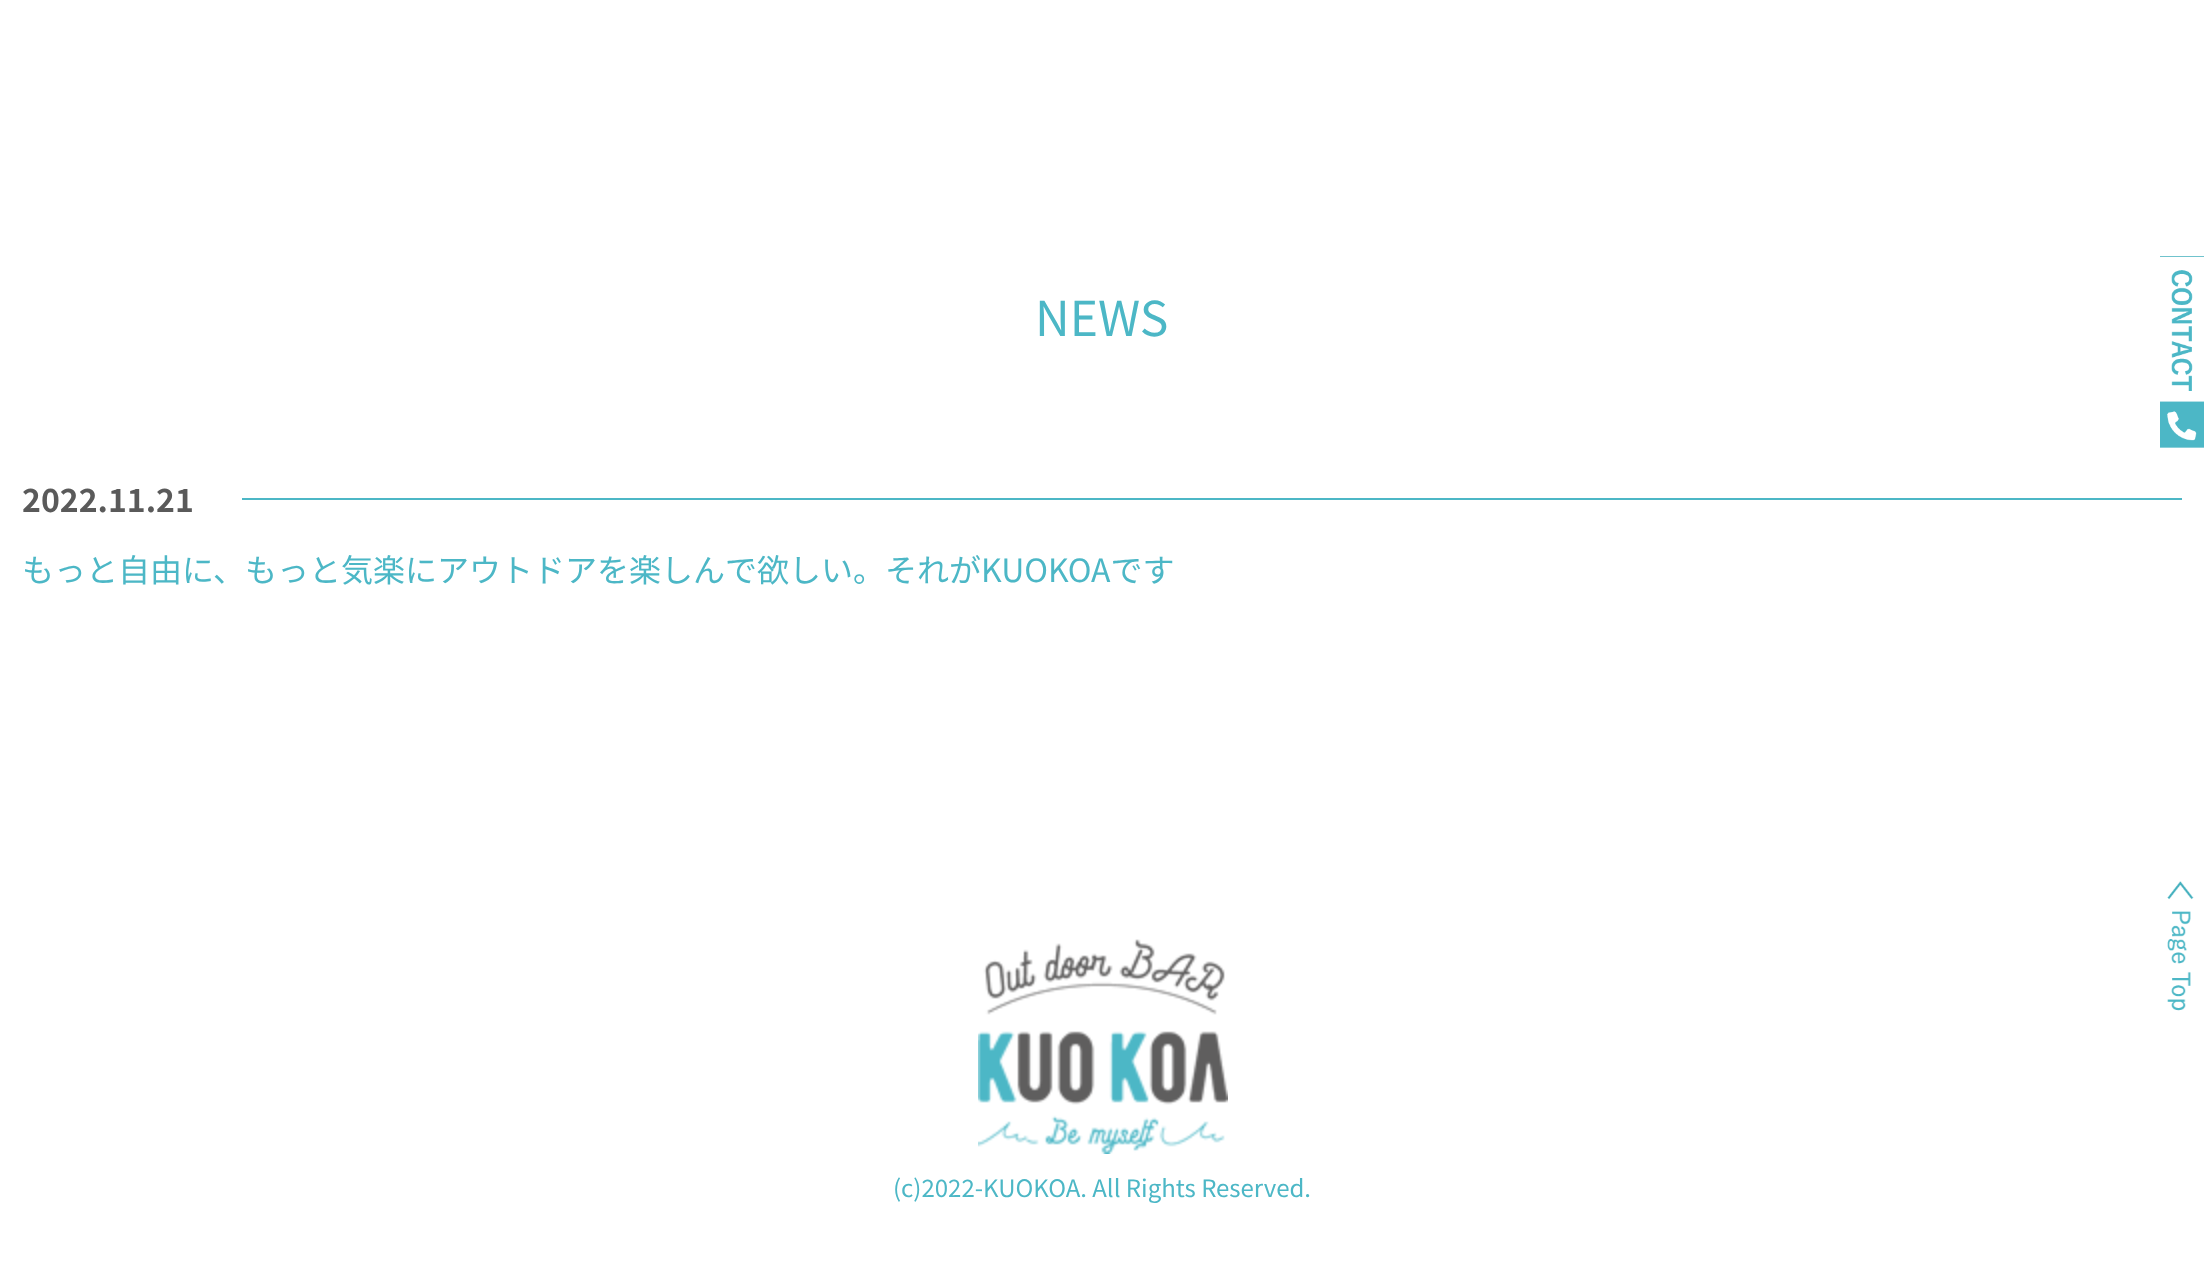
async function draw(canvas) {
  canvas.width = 2204;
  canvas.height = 1276;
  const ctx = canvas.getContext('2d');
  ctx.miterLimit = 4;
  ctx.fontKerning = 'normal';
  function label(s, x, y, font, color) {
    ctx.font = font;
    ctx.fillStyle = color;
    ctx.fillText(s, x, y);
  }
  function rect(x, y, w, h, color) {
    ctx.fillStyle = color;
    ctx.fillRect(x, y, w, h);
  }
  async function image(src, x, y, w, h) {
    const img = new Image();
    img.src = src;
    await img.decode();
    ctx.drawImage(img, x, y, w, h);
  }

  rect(0, 0, 2204, 1276, '#fff');
  label('NEWS', 1035, 336, '48px Noto Sans JP', '#4cb7c6');
  label('2022.11.21', 22, 512, 'bold 32px Noto Sans JP', '#5a5a5a');
  rect(242, 498, 1940, 2, '#4cb7c6');
  label('もっと自由に、もっと気楽にアウトドアを楽しんで欲しい。それがKUOKOAです', 22, 582, '32px Noto Sans JP', '#4cb7c6');
  await image('assets/img1.png', 2160, 256, 44, 192);
  await image('assets/img2.png', 2167, 881, 27, 130);
  await image('assets/img3.png', 978, 939, 250, 215);
  label('(c)2022-KUOKOA. All Rights Reserved.', 893, 1197, '24px Noto Sans JP', '#4cb7c6');
}

draw(document.querySelector('canvas'));
